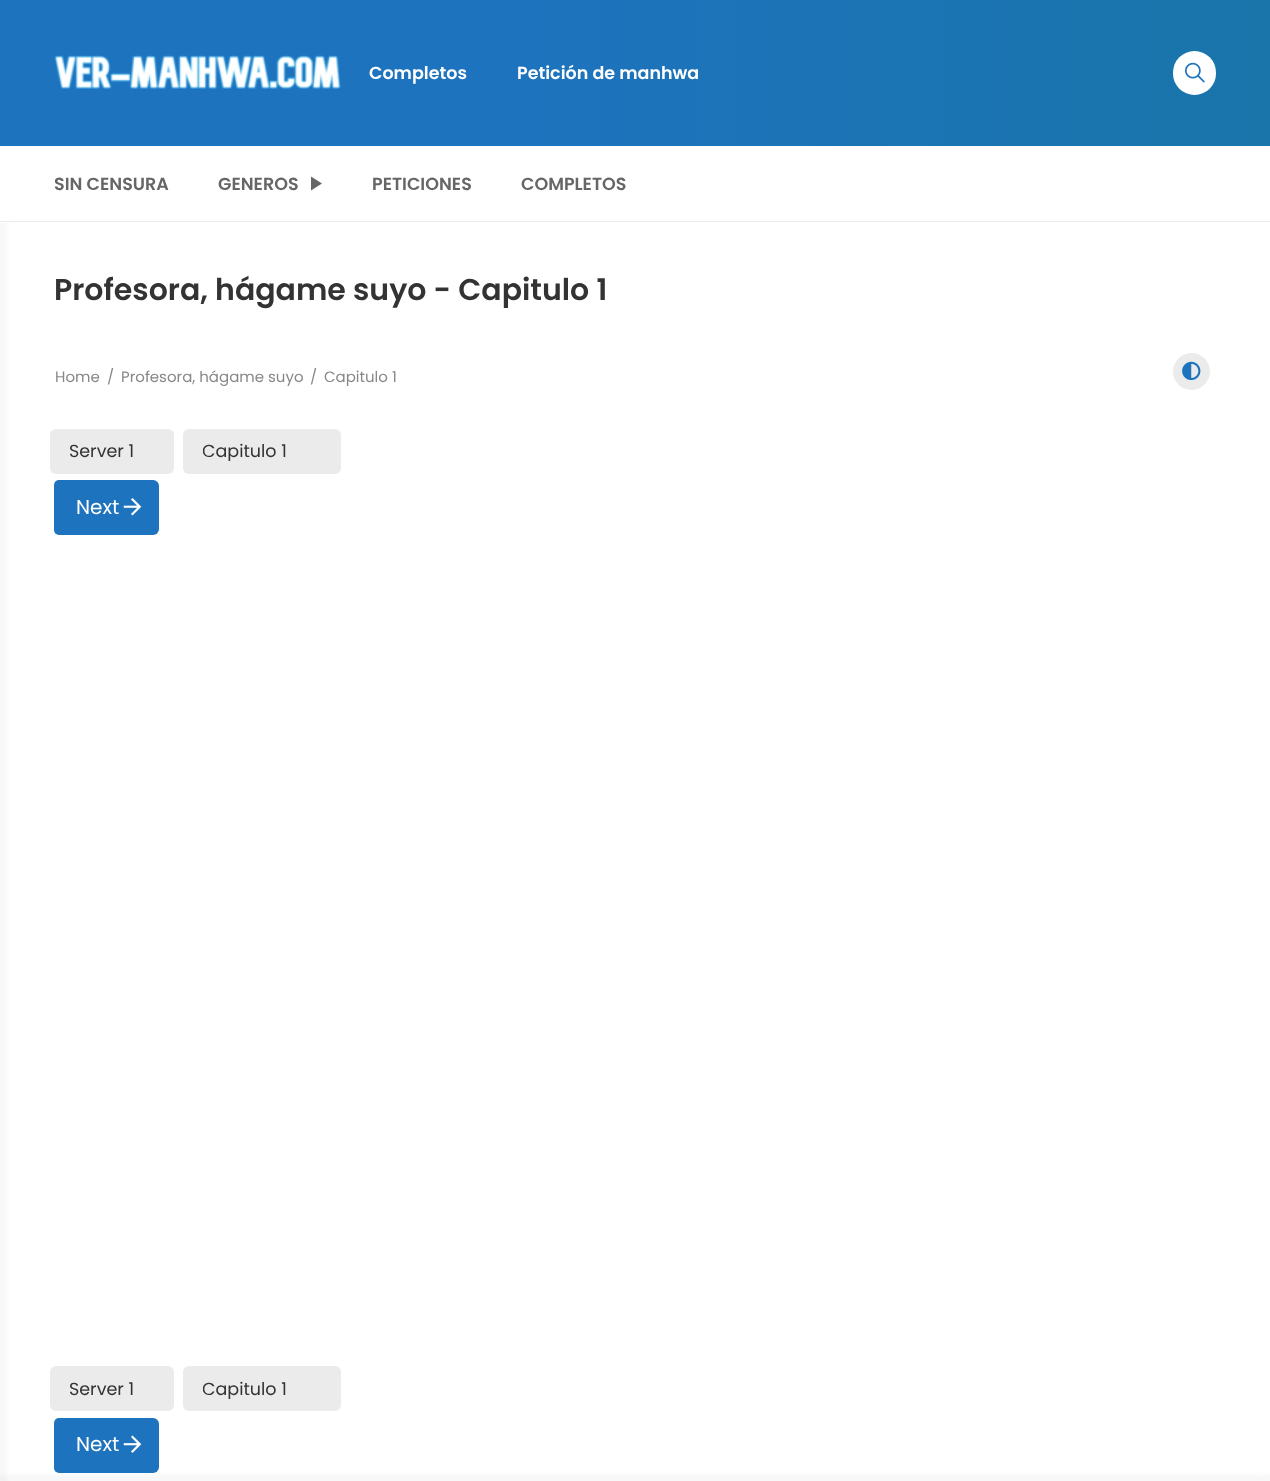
async function draw(canvas) {
  canvas.width = 1270;
  canvas.height = 1481;
  const ctx = canvas.getContext('2d');
  ctx.miterLimit = 4;
  ctx.fontKerning = 'normal';
  function label(s, x, y, font, color) {
    ctx.font = font;
    ctx.fillStyle = color;
    ctx.fillText(s, x, y);
  }
  function rect(x, y, w, h, color) {
    ctx.fillStyle = color;
    ctx.fillRect(x, y, w, h);
  }
  function roundedRect(x, y, w, h, r, color) {
    ctx.fillStyle = color;
    ctx.beginPath();
    ctx.roundRect(x, y, w, h, r);
    ctx.fill();
  }
  async function image(src, x, y, w, h) {
    const img = new Image();
    img.src = src;
    await img.decode();
    ctx.drawImage(img, x, y, w, h);
  }
  let gradient, path;

  rect(0, 0, 1270, 1481, '#fff');
  await image('assets/img1.png', 0, 223, 1270, 1258);
  gradient = ctx.createLinearGradient(0, 73, 1270, 73);
  gradient.addColorStop(0.4, '#1e73be');
  gradient.addColorStop(1, '#1975aa');
  ctx.fillStyle = gradient;
  ctx.fillRect(0, 0, 1270, 146);
  await image('assets/img2.png', 54, 55, 287, 34);
  label('Completos', 369, 79, '600 17.5px Poppins', '#fff');
  label('Petición de manhwa', 517, 79, '600 17.5px Poppins', '#fff');
  roundedRect(1173, 51, 43, 44, 21.5, '#fff');
  await image('assets/img3.png', 1185, 62, 20, 21);
  rect(0, 221, 1270, 1, '#ebebeb');
  label('SIN CENSURA', 54, 190, '600 17.5px Poppins', '#666');
  label('GENEROS', 218, 190, '600 17.5px Poppins', '#666');
  path = new Path2D('M311 176.5L322 183.5L311 190.5Z');
  ctx.fill(path);
  label('PETICIONES', 372, 190, '600 17.5px Poppins', '#666');
  label('COMPLETOS', 521, 190, '600 17.5px Poppins', '#666');
  label('Profesora, hágame suyo - Capitulo 1', 54, 300, '600 30px Poppins', '#333');
  label('Home', 55, 382, '15px Poppins', '#888');
  label('/', 107, 382, '15px Poppins', '#888');
  label('Profesora, hágame suyo', 121, 382, '15px Poppins', '#888');
  label('/', 310, 382, '15px Poppins', '#888');
  label('Capitulo 1', 324, 382, '15px Poppins', '#888');
  ctx.fillStyle = '#ebebeb';
  ctx.beginPath();
  ctx.arc(1191.5, 371.5, 18.5, 0, 2 * Math.PI);
  ctx.fill();
  await image('assets/img4.png', 1182, 361, 19, 20);
  roundedRect(50, 429, 124, 45, 6, '#ebebeb');
  label('Server 1', 69, 457, '17.5px Poppins', '#333');
  roundedRect(183, 429, 158, 45, 6, '#ebebeb');
  ctx.save();
  ctx.beginPath();
  ctx.rect(203, 441, 101, 20);
  ctx.clip();
  label('Capitulo 1', 202, 457, '17.5px Poppins', '#333');
  ctx.restore();
  ctx.fillStyle = '#1e73be';
  ctx.beginPath();
  ctx.roundRect(54, 480, 105, 55, [5, 6, 6, 5]);
  ctx.fill();
  label('Next', 76, 514, '20px Poppins', '#fff');
  await image('assets/img5.png', 123, 498, 19, 18);
  roundedRect(50, 1366, 124, 45, 6, '#ebebeb');
  label('Server 1', 69, 1395, '17.5px Poppins', '#333');
  roundedRect(183, 1366, 158, 45, 6, '#ebebeb');
  ctx.save();
  ctx.beginPath();
  ctx.rect(203, 1379, 101, 20);
  ctx.clip();
  label('Capitulo 1', 202, 1395, '17.5px Poppins', '#333');
  ctx.restore();
  ctx.fillStyle = '#1e73be';
  ctx.beginPath();
  ctx.roundRect(54, 1418, 105, 55, [5, 6, 6, 5]);
  ctx.fill();
  label('Next', 76, 1451, '20px Poppins', '#fff');
  await image('assets/img6.png', 123, 1435, 19, 18);
}

draw(document.querySelector('canvas'));
